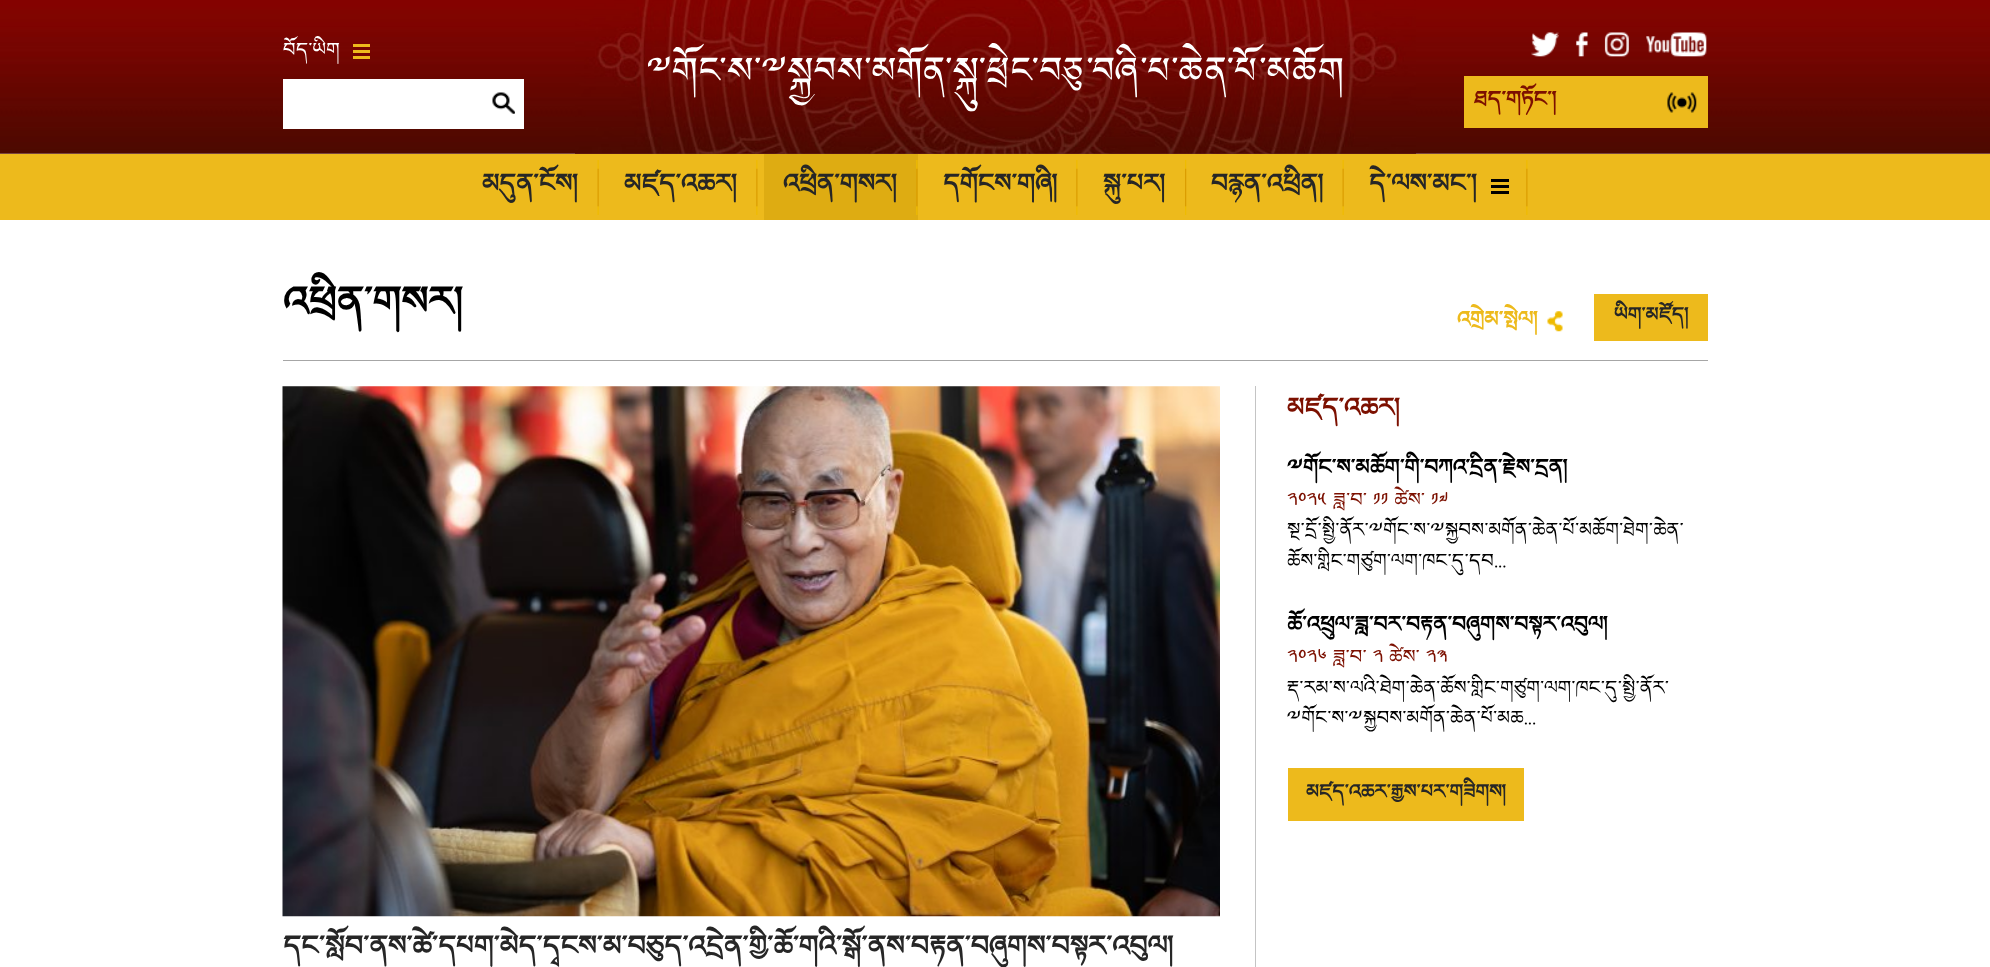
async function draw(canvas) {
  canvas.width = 1990;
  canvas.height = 967;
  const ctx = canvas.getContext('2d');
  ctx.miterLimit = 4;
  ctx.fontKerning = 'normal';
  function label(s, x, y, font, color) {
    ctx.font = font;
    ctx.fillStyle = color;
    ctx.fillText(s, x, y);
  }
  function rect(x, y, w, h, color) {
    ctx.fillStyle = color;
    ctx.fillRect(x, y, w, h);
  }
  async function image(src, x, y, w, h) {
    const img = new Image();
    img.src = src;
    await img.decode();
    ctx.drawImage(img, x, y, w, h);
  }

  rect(0, 0, 1990, 967, '#fff');
  await image('assets/img1.png', 0, 0, 1990, 154);
  await image('assets/img2.png', 575, 0, 841, 154);
  label('བོད་ཡིག', 283, 53, '21.4px "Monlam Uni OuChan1"', '#fff');
  rect(353, 44, 17, 3, '#edba1c');
  rect(353, 50, 17, 3, '#edba1c');
  rect(353, 56, 17, 3, '#edba1c');
  rect(283, 79, 241, 50, '#fff');
  await image('assets/img3.png', 492, 92, 23, 22);
  await image('assets/img4.png', 648, 43, 695, 69);
  await image('assets/img5.png', 1531, 32, 28, 25);
  await image('assets/img6.png', 1576, 32, 12, 25);
  await image('assets/img7.png', 1604, 32, 25, 25);
  await image('assets/img8.png', 1646, 32, 61, 25);
  rect(1464, 76, 244, 52, '#edba1c');
  await image('assets/img9.png', 1667, 92, 30, 21);
  label('ཐད་གཏོང་།', 1474, 103, 'bold 23.75px "Monlam Uni OuChan1"', '#7c1000');
  rect(0, 154, 1990, 66, '#edba1c');
  await image('assets/img10.png', 597, 160, 2, 55);
  label('མདུན་ངོས།', 482, 188, 'bold 28.5px "Monlam Uni OuChan1"', '#262626');
  await image('assets/img11.png', 756, 160, 2, 55);
  label('མཛད་འཆར།', 624, 188, 'bold 28.5px "Monlam Uni OuChan1"', '#262626');
  rect(764, 154, 154, 66, '#deac12');
  await image('assets/img12.png', 916, 160, 2, 55);
  label('འཕྲིན་གསར།', 783, 188, 'bold 28.5px "Monlam Uni OuChan1"', '#262626');
  await image('assets/img11.png', 1076, 160, 2, 55);
  label('དགོངས་གཞི།', 943, 188, 'bold 28.5px "Monlam Uni OuChan1"', '#262626');
  await image('assets/img13.png', 1185, 160, 2, 55);
  label('སྐུ་པར།', 1103, 188, 'bold 28.5px "Monlam Uni OuChan1"', '#262626');
  await image('assets/img10.png', 1342, 160, 2, 55);
  label('བརྙན་འཕྲིན།', 1211, 188, 'bold 28.5px "Monlam Uni OuChan1"', '#262626');
  await image('assets/img11.png', 1526, 160, 2, 55);
  label('དེ་ལས་མང་།', 1369, 188, 'bold 28.5px "Monlam Uni OuChan1"', '#262626');
  rect(1491, 179, 18, 3, '#000');
  rect(1491, 185, 18, 3, '#000');
  rect(1491, 191, 18, 3, '#000');
  rect(283, 360, 1425, 1, '#a6a6a6');
  label('འཕྲིན་གསར།', 283, 309, 'bold 45px "Monlam Uni OuChan1"', '#000');
  label('འགྲེམ་སྤེལ།', 1457, 323, 'bold 23.75px "Monlam Uni OuChan1"', '#edba1c');
  await image('assets/img14.png', 1547, 311, 16, 21);
  rect(1594, 294, 114, 47, '#edba1c');
  label('ཡིག་མཛོད།', 1614, 318, 'bold 21.4px "Monlam Uni OuChan1"', '#262626');
  rect(1255, 386, 1, 581, '#c4c4c4');
  label('མཛད་འཆར།', 1287, 412, 'bold 28.5px "Monlam Uni OuChan1"', '#7c1000');
  label('༸གོང་ས་མཆོག་གི་བཀའ་དྲིན་རྗེས་དྲན།', 1287, 471, 'bold 23.75px "Monlam Uni OuChan1"', '#000');
  label('༢༠༢༥ ཟླ་བ་ ༡༡ ཚེས་ ༡༧', 1287, 503, '21.4px "Monlam Uni OuChan1"', '#7c1000');
  label('སྔ་དྲོ་སྤྱི་ནོར་༸གོང་ས་༸སྐྱབས་མགོན་ཆེན་པོ་མཆོག་ཐེག་ཆེན་', 1287, 533, '21.4px "Monlam Uni OuChan1"', '#000');
  label('ཆོས་གླིང་གཙུག་ལག་ཁང་དུ་དབ...', 1287, 564, '21.4px "Monlam Uni OuChan1"', '#000');
  label('ཆོ་འཕྲུལ་ཟླ་བར་བརྟན་བཞུགས་བསྟར་འབུལ།', 1287, 628, 'bold 23.75px "Monlam Uni OuChan1"', '#000');
  label('༢༠༢༦ ཟླ་བ་ ༢ ཚེས་ ༢༣', 1287, 660, '21.4px "Monlam Uni OuChan1"', '#7c1000');
  label('རྡ་རམ་ས་ལའི་ཐེག་ཆེན་ཆོས་གླིང་གཙུག་ལག་ཁང་དུ་སྤྱི་ནོར་', 1287, 691, '21.4px "Monlam Uni OuChan1"', '#000');
  label('༸གོང་ས་༸སྐྱབས་མགོན་ཆེན་པོ་མཆ...', 1287, 721, '21.4px "Monlam Uni OuChan1"', '#000');
  rect(1288, 768, 236, 53, '#edba1c');
  label('མཛད་འཆར་རྒྱས་པར་གཟིགས།', 1306, 795, 'bold 21.4px "Monlam Uni OuChan1"', '#262626');
  await image('assets/img15.png', 282, 386, 938, 531);
  label('དང་སློབ་ནས་ཚེ་དཔག་མེད་དྭངས་མ་བཅུད་འདྲེན་གྱི་ཆོ་གའི་སྒོ་ནས་བརྟན་བཞུགས་བསྟར་འབུལ།', 283, 951, 'bold 30.9px "Monlam Uni OuChan1"', '#262626');
}

draw(document.querySelector('canvas'));
